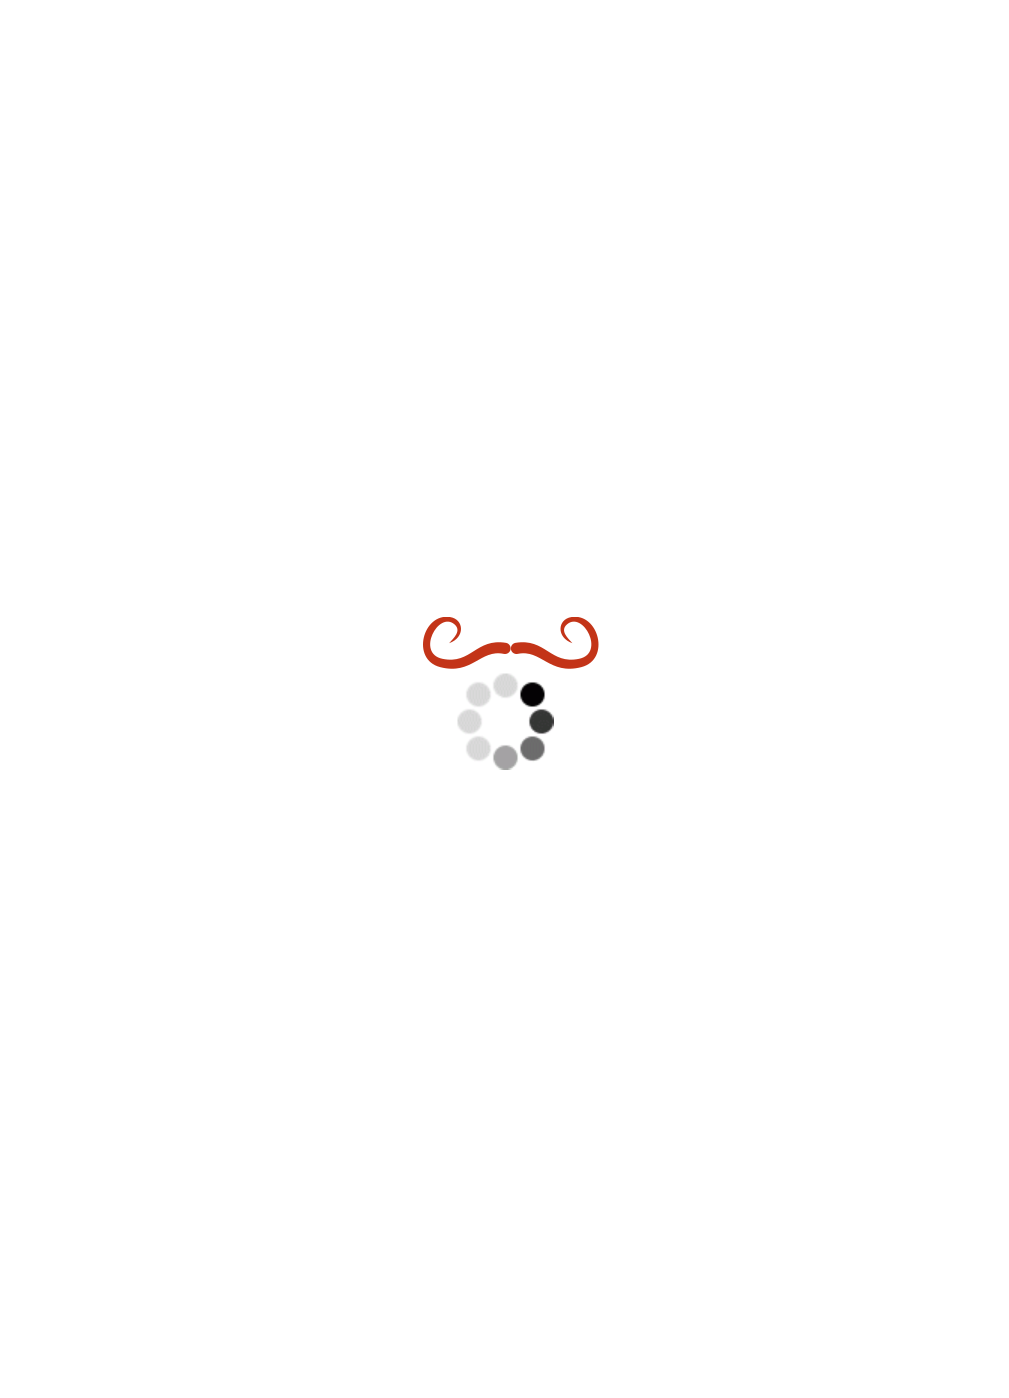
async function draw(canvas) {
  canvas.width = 1009;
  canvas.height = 1398;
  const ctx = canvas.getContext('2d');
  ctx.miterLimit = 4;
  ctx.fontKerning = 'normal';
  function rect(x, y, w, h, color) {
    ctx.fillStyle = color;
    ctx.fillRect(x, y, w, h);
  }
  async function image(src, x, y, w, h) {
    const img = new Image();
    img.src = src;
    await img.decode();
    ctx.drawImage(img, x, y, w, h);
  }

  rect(0, 0, 1009, 1398, '#fff');
  await image('assets/img1.png', 423, 617, 176, 52);
  await image('assets/img2.png', 457, 673, 97, 97);
}

draw(document.querySelector('canvas'));
